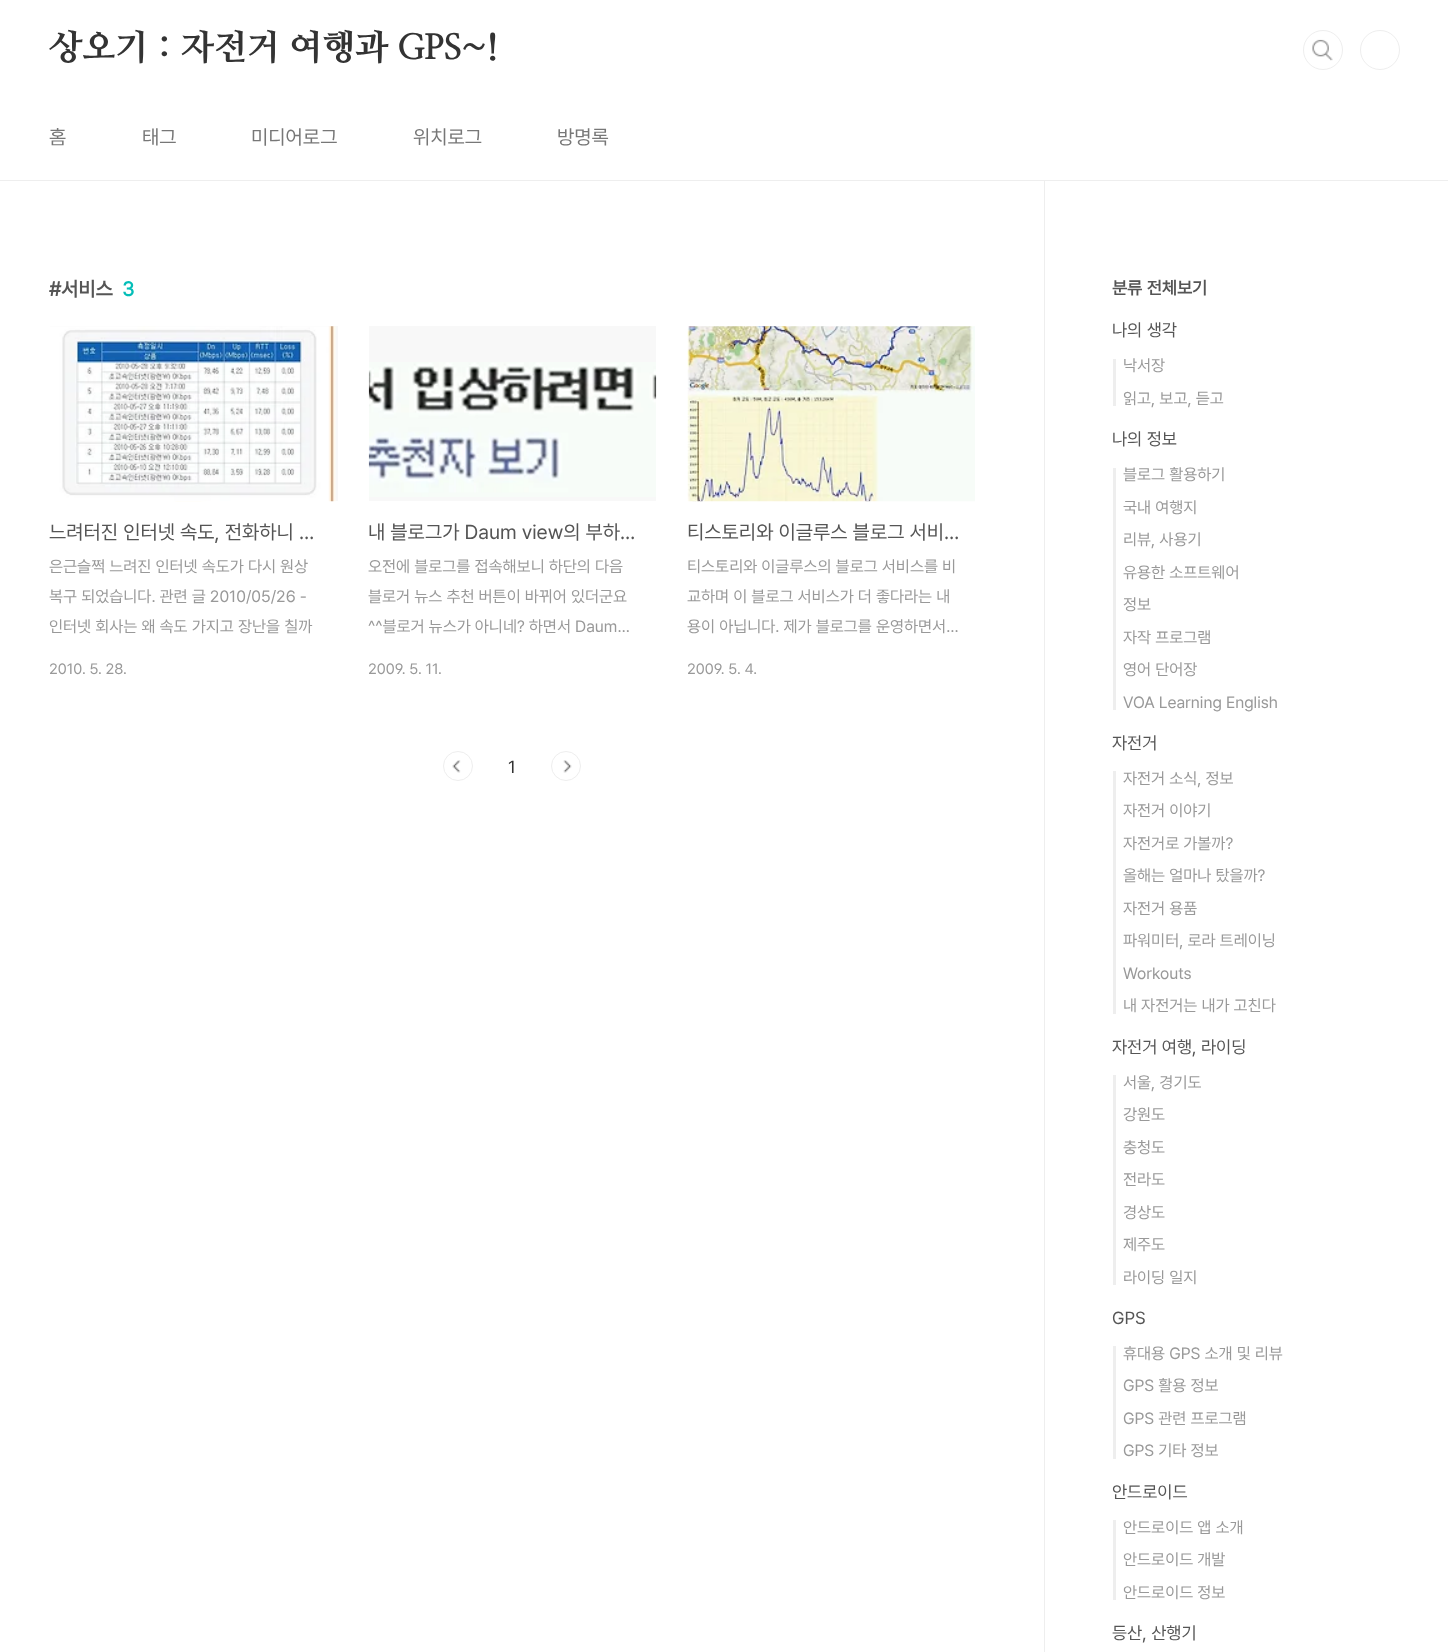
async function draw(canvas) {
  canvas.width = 1448;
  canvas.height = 1652;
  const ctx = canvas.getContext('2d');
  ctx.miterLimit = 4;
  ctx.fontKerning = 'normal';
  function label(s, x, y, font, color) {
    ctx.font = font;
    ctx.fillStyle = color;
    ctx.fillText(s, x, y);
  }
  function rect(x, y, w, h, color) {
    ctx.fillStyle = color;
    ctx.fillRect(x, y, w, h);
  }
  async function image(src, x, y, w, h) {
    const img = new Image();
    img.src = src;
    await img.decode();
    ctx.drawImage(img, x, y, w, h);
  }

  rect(0, 0, 1448, 1652, '#fff');
  rect(0, 180, 1448, 1, '#eee');
  ctx.letterSpacing = '-0.25px';
  label('상오기 : 자전거 여행과 GPS~!', 49, 59, '800 35px NanumMyeongjo', '#333');
  ctx.beginPath();
  ctx.roundRect(1304.5, 31.5, 36, 37, 18);
  ctx.strokeStyle = '#eee';
  ctx.stroke();
  ctx.fillStyle = '#fff';
  ctx.beginPath();
  ctx.arc(1323, 50, 20, 0, 2 * Math.PI);
  ctx.fill();
  await image('assets/img1.png', 1312, 39, 21, 22);
  ctx.beginPath();
  ctx.arc(1323, 50, 19.5, 0, 2 * Math.PI);
  ctx.stroke();
  ctx.beginPath();
  ctx.arc(1380, 50, 19.5, 0, 2 * Math.PI);
  ctx.stroke();
  ctx.letterSpacing = '0px';
  label('홈', 49, 144, '20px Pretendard', '#777');
  label('태그', 142, 144, '20px Pretendard', '#777');
  label('미디어로그', 251, 144, '20px Pretendard', '#777');
  label('위치로그', 413, 144, '20px Pretendard', '#777');
  label('방명록', 557, 144, '20px Pretendard', '#777');
  label('#서비스', 49, 296, 'bold 20px Pretendard', '#555');
  label('3', 122, 296, 'bold 20px Pretendard', '#04beb8');
  rect(50, 326, 288, 175, '#f8f8f8');
  await image('assets/img2.png', 50, 326, 286, 176);
  label('느려터진 인터넷 속도, 전화하니 …', 49, 539, '20px Pretendard', '#555');
  label('은근슬쩍 느려진 인터넷 속도가 다시 원상', 49, 572, '16.25px Pretendard', '#999');
  label('복구 되었습니다. 관련 글 2010/05/26 -', 49, 602, '16.25px Pretendard', '#999');
  label('인터넷 회사는 왜 속도 가지고 장난을 칠까', 49, 632, '16.25px Pretendard', '#999');
  label('2010. 5. 28.', 49, 674, '15px Pretendard', '#999');
  rect(369, 326, 287, 175, '#f8f8f8');
  await image('assets/img3.png', 368, 362, 289, 135);
  label('내 블로그가 Daum view의 부하…', 368, 539, '20px Pretendard', '#555');
  label('오전에 블로그를 접속해보니 하단의 다음', 368, 572, '16.25px Pretendard', '#999');
  label('블로거 뉴스 추천 버튼이 바뀌어 있더군요', 368, 602, '16.25px Pretendard', '#999');
  label('^^블로거 뉴스가 아니네? 하면서 Daum…', 368, 632, '16.25px Pretendard', '#999');
  label('2009. 5. 11.', 368, 674, '15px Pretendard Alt', '#999');
  await image('assets/img4.png', 687, 326, 288, 176);
  label('티스토리와 이글루스 블로그 서비…', 687, 539, '20px Pretendard', '#555');
  label('티스토리와 이글루스의 블로그 서비스를 비', 687, 572, '16.25px Pretendard', '#999');
  label('교하며 이 블로그 서비스가 더 좋다라는 내', 687, 602, '16.25px Pretendard', '#999');
  label('용이 아닙니다. 제가 블로그를 운영하면서…', 687, 632, '16.25px Pretendard', '#999');
  label('2009. 5. 4.', 687, 674, '15px Pretendard Alt', '#999');
  await image('assets/img5.png', 452, 760, 9, 13);
  ctx.beginPath();
  ctx.arc(458, 766, 14.5, 0, 2 * Math.PI);
  ctx.stroke();
  label('1', 508, 773, '17.5px Pretendard', '#333');
  await image('assets/img6.png', 563, 760, 9, 13);
  ctx.beginPath();
  ctx.arc(566, 766, 14.5, 0, 2 * Math.PI);
  ctx.stroke();
  rect(1044, 181, 1, 1471, '#eee');
  label('분류 전체보기', 1112, 294, 'bold 17.5px Pretendard', '#555');
  label('나의 생각', 1112, 336, '17.5px Pretendard', '#555');
  rect(1113, 359, 3, 47, '#eee');
  label('낙서장', 1123, 371, '16.25px Pretendard', '#999');
  label('읽고, 보고, 듣고', 1123, 404, '16.25px Pretendard', '#999');
  label('나의 정보', 1112, 445, '17.5px Pretendard', '#555');
  rect(1113, 468, 3, 242, '#eee');
  label('블로그 활용하기', 1123, 480, '16.25px Pretendard', '#999');
  label('국내 여행지', 1123, 513, '16.25px Pretendard', '#999');
  label('리뷰, 사용기', 1123, 545, '16.25px Pretendard', '#999');
  label('유용한 소프트웨어', 1123, 578, '16.25px Pretendard', '#999');
  label('정보', 1123, 610, '16.25px Pretendard', '#999');
  label('자작 프로그램', 1123, 643, '16.25px Pretendard', '#999');
  label('영어 단어장', 1123, 675, '16.25px Pretendard', '#999');
  label('VOA Learning English', 1123, 708, '16.25px Pretendard', '#999');
  label('자전거', 1112, 749, '17.5px Pretendard', '#555');
  rect(1113, 771, 3, 243, '#eee');
  label('자전거 소식, 정보', 1123, 784, '16.25px Pretendard', '#999');
  label('자전거 이야기', 1123, 816, '16.25px Pretendard', '#999');
  label('자전거로 가볼까?', 1123, 849, '16.25px Pretendard', '#999');
  label('올해는 얼마나 탔을까?', 1123, 881, '16.25px Pretendard', '#999');
  label('자전거 용품', 1123, 914, '16.25px Pretendard', '#999');
  label('파워미터, 로라 트레이닝', 1123, 946, '16.25px Pretendard', '#999');
  label('Workouts', 1123, 979, '16.25px Pretendard', '#999');
  label('내 자전거는 내가 고친다', 1123, 1011, '16.25px Pretendard', '#999');
  label('자전거 여행, 라이딩', 1112, 1053, '17.5px Pretendard', '#555');
  rect(1113, 1075, 3, 210, '#eee');
  label('서울, 경기도', 1123, 1088, '16.25px Pretendard', '#999');
  label('강원도', 1123, 1120, '16.25px Pretendard', '#999');
  label('충청도', 1123, 1153, '16.25px Pretendard', '#999');
  label('전라도', 1123, 1185, '16.25px Pretendard', '#999');
  label('경상도', 1123, 1218, '16.25px Pretendard', '#999');
  label('제주도', 1123, 1250, '16.25px Pretendard', '#999');
  label('라이딩 일지', 1123, 1283, '16.25px Pretendard', '#999');
  label('GPS', 1112, 1324, '17.5px Pretendard', '#555');
  rect(1113, 1346, 3, 113, '#eee');
  label('휴대용 GPS 소개 및 리뷰', 1123, 1359, '16.25px Pretendard', '#999');
  label('GPS 활용 정보', 1123, 1391, '16.25px Pretendard', '#999');
  label('GPS 관련 프로그램', 1123, 1424, '16.25px Pretendard', '#999');
  label('GPS 기타 정보', 1123, 1456, '16.25px Pretendard', '#999');
  label('안드로이드', 1112, 1498, '17.5px Pretendard', '#555');
  rect(1113, 1520, 3, 80, '#eee');
  label('안드로이드 앱 소개', 1123, 1533, '16.25px Pretendard', '#999');
  label('안드로이드 개발', 1123, 1565, '16.25px Pretendard', '#999');
  label('안드로이드 정보', 1123, 1598, '16.25px Pretendard', '#999');
  label('등산, 산행기', 1112, 1639, '17.5px Pretendard', '#555');
}

draw(document.querySelector('canvas'));
